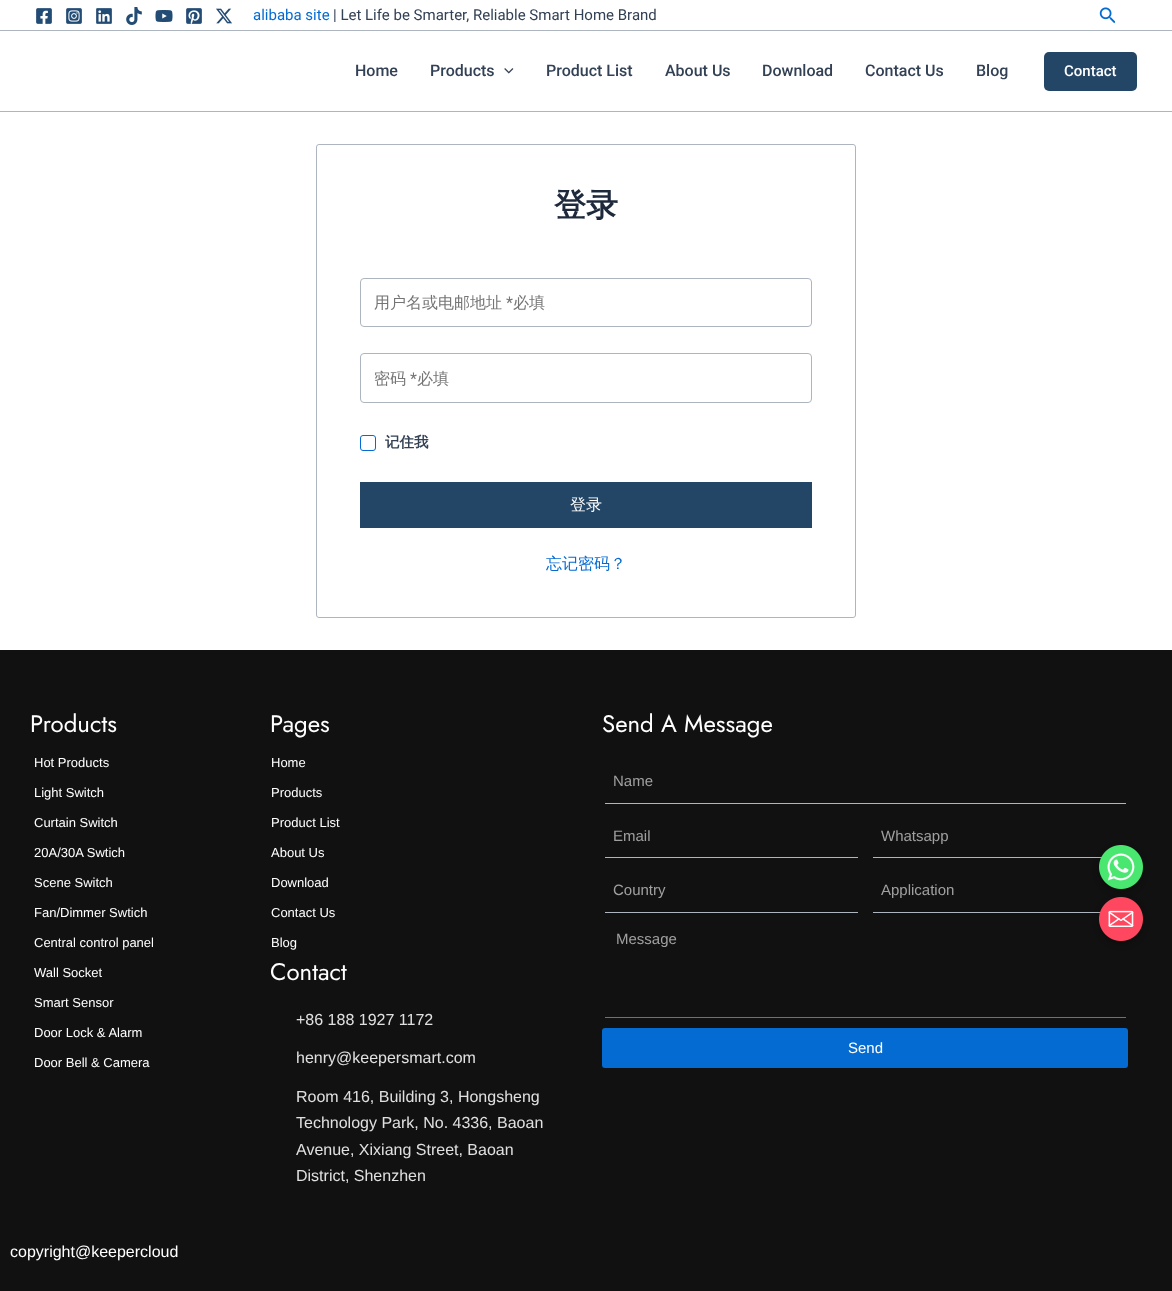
async function draw(canvas) {
  canvas.width = 1172;
  canvas.height = 1291;
  const ctx = canvas.getContext('2d');
  ctx.miterLimit = 4;
  ctx.fontKerning = 'normal';
  function label(s, x, y, font, color) {
    ctx.font = font;
    ctx.fillStyle = color;
    ctx.fillText(s, x, y);
  }
  function rect(x, y, w, h, color) {
    ctx.fillStyle = color;
    ctx.fillRect(x, y, w, h);
  }
  function roundedRect(x, y, w, h, r, color) {
    ctx.fillStyle = color;
    ctx.beginPath();
    ctx.roundRect(x, y, w, h, r);
    ctx.fill();
  }
  async function image(src, x, y, w, h) {
    const img = new Image();
    img.src = src;
    await img.decode();
    ctx.drawImage(img, x, y, w, h);
  }

  rect(0, 0, 1172, 1291, '#fff');
  rect(0, 30, 1172, 1, '#adb6be');
  await image('assets/img1.png', 36, 8, 16, 16);
  await image('assets/img2.png', 66, 8, 16, 16);
  await image('assets/img3.png', 96, 8, 16, 16);
  await image('assets/img4.png', 126, 7, 16, 18);
  await image('assets/img5.png', 155, 10, 18, 12);
  await image('assets/img6.png', 186, 8, 16, 16);
  await image('assets/img7.png', 216, 8, 16, 16);
  label('alibaba site', 253, 20, '15px Roboto', '#046bd2');
  label('| Let Life be Smarter, Reliable Smart Home Brand', 333, 20, '15px Roboto', '#334155');
  await image('assets/img8.png', 1099, 7, 16, 17);
  rect(0, 111, 1172, 1, '#adb6be');
  label('Home', 355, 76, '500 16px Roboto', '#334155');
  label('Products', 430, 76, '500 16px Roboto', '#334155');
  await image('assets/img9.png', 504, 68, 10, 6);
  label('Product List', 546, 76, '500 16px Roboto', '#334155');
  label('About Us', 665, 76, '500 16px Roboto', '#334155');
  label('Download', 762, 76, '500 16px Roboto', '#334155');
  label('Contact Us', 865, 76, '500 16px Roboto', '#334155');
  label('Blog', 976, 76, '500 16px Roboto', '#334155');
  roundedRect(1044, 52, 93, 39, 5, '#234667');
  label('Contact', 1064, 76, '500 15px Roboto', '#fff');
  ctx.beginPath();
  ctx.roundRect(316.5, 144.5, 539, 473, 2.5);
  ctx.strokeStyle = '#adb6be';
  ctx.stroke();
  label('登录', 554, 216, 'bold 32px WenQuanYi Zen Hei', '#1e293b');
  ctx.beginPath();
  ctx.roundRect(360.5, 278.5, 451, 48, 3.5);
  ctx.stroke();
  label('用户名或电邮地址', 374, 308, '500 16px WenQuanYi Zen Hei', '#757575');
  label('*', 506, 308, '16px Roboto', '#757575');
  label('必填', 513, 308, '500 16px WenQuanYi Zen Hei', '#757575');
  ctx.beginPath();
  ctx.roundRect(360.5, 353.5, 451, 49, 3.5);
  ctx.stroke();
  label('密码', 374, 384, '500 16px WenQuanYi Zen Hei', '#757575');
  label('*', 410, 384, '16px Roboto', '#757575');
  label('必填', 417, 384, '500 16px WenQuanYi Zen Hei', '#757575');
  ctx.beginPath();
  ctx.roundRect(360.5, 435.5, 15, 15, 2.5);
  ctx.strokeStyle = '#046bd2';
  ctx.stroke();
  label('记住我', 385, 447, 'bold 14.5px WenQuanYi Zen Hei', '#334155');
  rect(360, 482, 452, 46, '#234667');
  label('登录', 570, 510, '500 16px WenQuanYi Zen Hei', '#fff');
  label('忘记密码？', 546, 569, '500 16px WenQuanYi Zen Hei', '#046bd2');
  rect(0, 650, 1172, 641, '#111');
  label('Products', 30, 732, '24px Jost', '#fff');
  label('Hot Products', 34, 767, '13px Liberation Sans', '#fff');
  label('Light Switch', 34, 797, '13px Liberation Sans', '#fff');
  label('Curtain Switch', 34, 827, '13px Liberation Sans', '#fff');
  label('20A/30A Swtich', 34, 857, '13px Liberation Sans', '#fff');
  label('Scene Switch', 34, 887, '13px Liberation Sans', '#fff');
  label('Fan/Dimmer Swtich', 34, 917, '13px Liberation Sans', '#fff');
  label('Central control panel', 34, 947, '13px Liberation Sans', '#fff');
  label('Wall Socket', 34, 977, '13px Liberation Sans', '#fff');
  label('Smart Sensor', 34, 1007, '13px Liberation Sans', '#fff');
  label('Door Lock & Alarm', 34, 1037, '13px Liberation Sans', '#fff');
  label('Door Bell & Camera', 34, 1067, '13px Liberation Sans', '#fff');
  label('Pages', 270, 732, '24px Jost', '#fff');
  label('Home', 271, 767, '13px Liberation Sans', '#fff');
  label('Products', 271, 797, '13px Liberation Sans', '#fff');
  label('Product List', 271, 827, '13px Liberation Sans', '#fff');
  label('About Us', 271, 857, '13px Liberation Sans', '#fff');
  label('Download', 271, 887, '13px Liberation Sans', '#fff');
  label('Contact Us', 271, 917, '13px Liberation Sans', '#fff');
  label('Blog', 271, 947, '13px Liberation Sans', '#fff');
  label('Contact', 270, 980, '24px Jost', '#fff');
  label('+86 188 1927 1172', 296, 1025, '16px Liberation Sans', '#e0e0e0');
  label('henry@keepersmart.com', 296, 1063, '16px Liberation Sans', '#e0e0e0');
  label('Room 416, Building 3, Hongsheng', 296, 1102, '16px Liberation Sans', '#e0e0e0');
  label('Technology Park, No. 4336, Baoan', 296, 1128, '16px Liberation Sans', '#e0e0e0');
  label('Avenue, Xixiang Street, Baoan', 296, 1155, '16px Liberation Sans', '#e0e0e0');
  label('District, Shenzhen', 296, 1181, '16px Liberation Sans', '#e0e0e0');
  label('Send A Message', 602, 732, '24px Jost', '#fff');
  rect(605, 803, 521, 1, '#adb6be');
  label('Name', 613, 786, '15px Liberation Sans', '#a0a0a0');
  rect(605, 857, 253, 1, '#adb6be');
  label('Email', 613, 841, '15px Liberation Sans', '#a0a0a0');
  rect(873, 857, 229, 1, '#adb6be');
  ctx.save();
  ctx.beginPath();
  ctx.rect(881, 827, 236, 17);
  ctx.clip();
  label('Whatsapp', 881, 841, '15px Liberation Sans', '#a0a0a0');
  ctx.restore();
  rect(605, 912, 253, 1, '#adb6be');
  label('Country', 613, 895, '15px Liberation Sans', '#a0a0a0');
  rect(873, 912, 228, 1, '#adb6be');
  ctx.save();
  ctx.beginPath();
  ctx.rect(881, 881, 236, 17);
  ctx.clip();
  label('Application', 881, 895, '15px Liberation Sans', '#a0a0a0');
  ctx.restore();
  rect(605, 1017, 521, 1, '#69727d');
  label('Message', 616, 944, '15px Liberation Sans', '#a0a0a0');
  roundedRect(602, 1028, 526, 40, 3, '#046bd2');
  label('Send', 848, 1053, '15px Liberation Sans', '#fff');
  label('copyright@keepercloud', 10, 1257, '16px Liberation Sans', '#fff');
  ctx.fillStyle = '#00000040';
  ctx.filter = 'blur(3px)';
  ctx.beginPath();
  ctx.roundRect(1099, 848, 44, 44, 22);
  ctx.fill();
  ctx.filter = 'none';
  await image('assets/img10.png', 1099, 845, 44, 44);
  ctx.filter = 'blur(3px)';
  ctx.beginPath();
  ctx.roundRect(1099, 900, 44, 44, 22);
  ctx.fill();
  ctx.filter = 'none';
  await image('assets/img11.png', 1099, 897, 44, 44);
}

draw(document.querySelector('canvas'));
